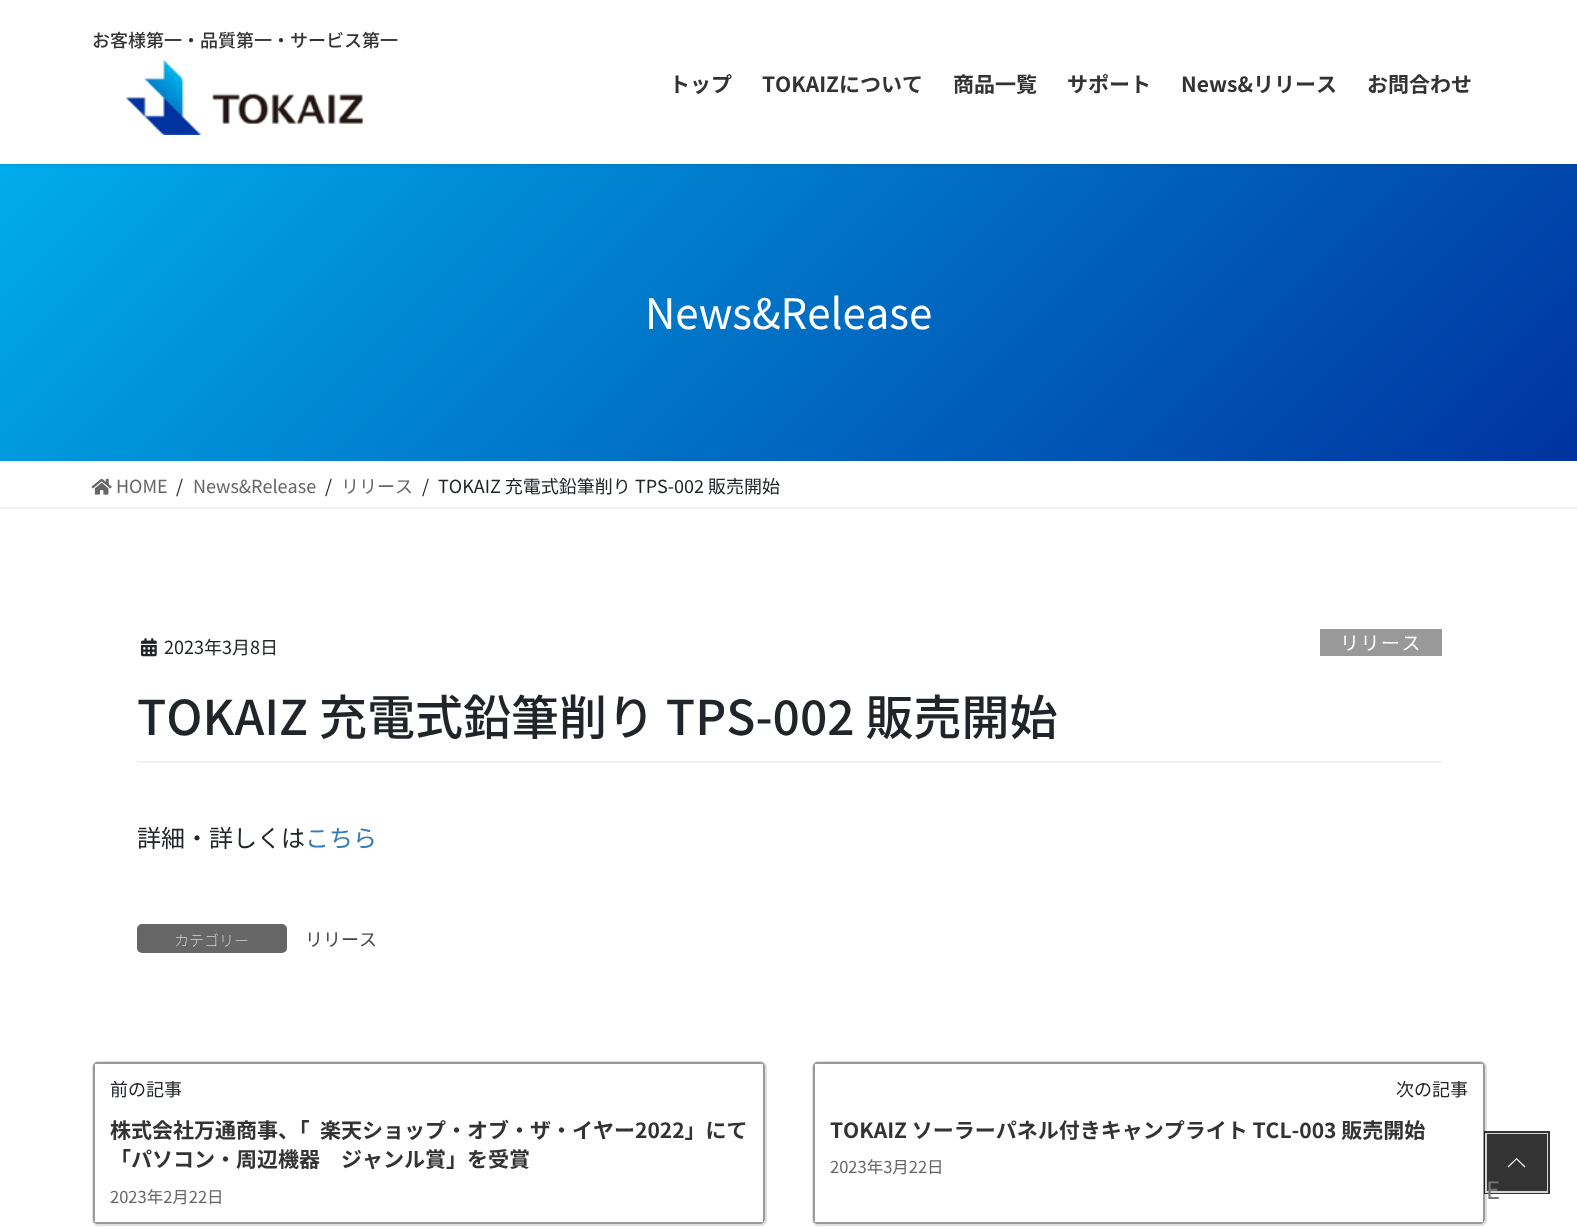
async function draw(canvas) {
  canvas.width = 1577;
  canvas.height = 1228;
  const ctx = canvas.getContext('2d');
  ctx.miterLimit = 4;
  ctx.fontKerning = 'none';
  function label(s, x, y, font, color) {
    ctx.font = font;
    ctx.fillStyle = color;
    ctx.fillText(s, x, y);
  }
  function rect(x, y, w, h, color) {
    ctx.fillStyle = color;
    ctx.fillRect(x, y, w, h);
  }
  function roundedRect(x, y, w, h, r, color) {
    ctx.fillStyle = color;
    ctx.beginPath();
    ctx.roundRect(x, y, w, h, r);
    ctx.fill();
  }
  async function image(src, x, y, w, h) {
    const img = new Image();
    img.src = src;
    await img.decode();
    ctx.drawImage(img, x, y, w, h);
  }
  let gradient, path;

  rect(0, 0, 1577, 1228, '#fff');
  gradient = ctx.createLinearGradient(320, -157, 1258, 781);
  gradient.addColorStop(0, '#00adea');
  gradient.addColorStop(1, '#0033a0');
  ctx.fillStyle = gradient;
  ctx.fillRect(0, 164, 1577, 297);
  ctx.fillStyle = '#0000001a';
  ctx.filter = 'blur(2px)';
  ctx.beginPath();
  ctx.rect(0, -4, 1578, 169);
  ctx.fill();
  ctx.filter = 'none';
  rect(0, 0, 1577, 164, '#fff');
  label('お客様第一・品質第一・サービス第一', 92, 47, '500 18px Noto Sans JP', '#333');
  await image('assets/img1.png', 126, 60, 237, 75);
  label('トップ', 669, 92, 'bold 21px Noto Sans JP', '#333');
  label('TOKAIZについて', 762, 92, 'bold 21px Noto Sans JP', '#333');
  label('商品一覧', 953, 92, 'bold 21px Noto Sans JP', '#333');
  label('サポート', 1067, 92, 'bold 21px Noto Sans JP', '#333');
  label('News&リリース', 1181, 92, 'bold 21px Noto Sans JP', '#333');
  label('お問合わせ', 1367, 92, 'bold 21px Noto Sans JP', '#333');
  label('News&Release', 645, 329, '42px Noto Sans JP', '#fff');
  rect(0, 507, 1577, 2, '#f2f2f2');
  await image('assets/img2.png', 91, 478, 21, 17);
  label('HOME', 116, 493, '18px Noto Sans JP', '#666');
  label('/', 176, 493, '18px Noto Sans JP', '#212529');
  label('News&Release', 193, 493, '18px Noto Sans JP', '#666');
  label('/', 325, 493, '18px Noto Sans JP', '#212529');
  label('リリース', 341, 493, '18px Noto Sans JP', '#666');
  label('/', 422, 493, '18px Noto Sans JP', '#212529');
  label('TOKAIZ 充電式鉛筆削り TPS-002 販売開始', 438, 493, '18px Noto Sans JP', '#212529');
  rect(137, 761, 1305, 2, '#f2f2f2');
  await image('assets/img3.png', 141, 638, 16, 19);
  label('2023年3月8日', 164, 654, '18px Noto Sans JP', '#212529');
  rect(1320, 629, 122, 27, '#999');
  ctx.letterSpacing = '1.5px';
  label('リリース', 1340, 650, '19px Noto Sans JP', '#fff');
  ctx.letterSpacing = '0px';
  label('TOKAIZ 充電式鉛筆削り TPS-002 販売開始', 137, 735, '500 48px Noto Sans JP', '#212529');
  label('詳細・詳しくは', 137, 847, '24px Noto Sans JP', '#212529');
  label('こちら', 305, 847, '24px Noto Sans JP', '#337ab7');
  roundedRect(137, 924, 150, 29, 5, '#666');
  label('カテゴリー', 174, 946, '100 15px Noto Sans JP', '#fff');
  label('リリース', 305, 946, '18px Noto Sans JP', '#464646');
  ctx.beginPath();
  ctx.roundRect(93, 1062, 673, 163, 5);
  ctx.strokeStyle = '#dfdfdf';
  ctx.lineWidth = 2;
  ctx.stroke();
  ctx.fillStyle = '#999';
  path = new Path2D('M98 1062C95 1062 93 1064 93 1067V1219C93 1222 95 1224 98 1224H760C763 1224 765 1222 765 1219V1067C765 1064 763 1062 760 1062ZM95 1064V1222H763V1064Z');
  ctx.fill(path, 'evenodd');
  label('前の記事', 110, 1096, '18px Noto Sans JP', '#212529');
  label('株式会社万通商事、「', 110, 1138, 'bold 21px Noto Sans JP', '#333');
  label('楽天ショップ・オブ・ザ・イヤー2022」にて', 320, 1138, 'bold 21px Noto Sans JP', '#333');
  label('「パソコン・周辺機器　ジャンル賞」を受賞', 110, 1167, 'bold 21px Noto Sans JP', '#333');
  label('2023年2月22日', 110, 1203, '16.5px Noto Sans JP', '#666');
  ctx.beginPath();
  ctx.roundRect(813, 1062, 673, 163, 5);
  ctx.stroke();
  ctx.fillStyle = '#999';
  path = new Path2D('M818 1062C815 1062 813 1064 813 1067V1219C813 1222 815 1224 818 1224H1480C1483 1224 1485 1222 1485 1219V1067C1485 1064 1483 1062 1480 1062ZM815 1064V1222H1483V1064Z');
  ctx.fill(path, 'evenodd');
  label('次の記事', 1396, 1096, '18px Noto Sans JP', '#212529');
  label('TOKAIZ ソーラーパネル付きキャンプライト TCL-003 販売開始', 830, 1138, 'bold 21px Noto Sans JP', '#333');
  label('2023年3月22日', 830, 1173, '16.5px Noto Sans JP', '#666');
  ctx.strokeStyle = '#000000cc';
  ctx.lineWidth = 3;
  ctx.strokeRect(1485.5, 1132.5, 63, 60);
  ctx.strokeStyle = '#ffffffcc';
  ctx.lineWidth = 2;
  ctx.strokeRect(1486, 1134, 61, 58);
  rect(1487, 1134, 60, 57, '#333');
  ctx.fillStyle = '#fff';
  path = new Path2D('M1525.5 1166.5L1524.5 1167.5L1516.5 1159.5L1508.5 1167.5L1507.5 1166.5L1516.5 1158Z');
  ctx.fill(path);
  label('E', 1486, 1199, '24px Noto Sans JP', '#777');
}

draw(document.querySelector('canvas'));
